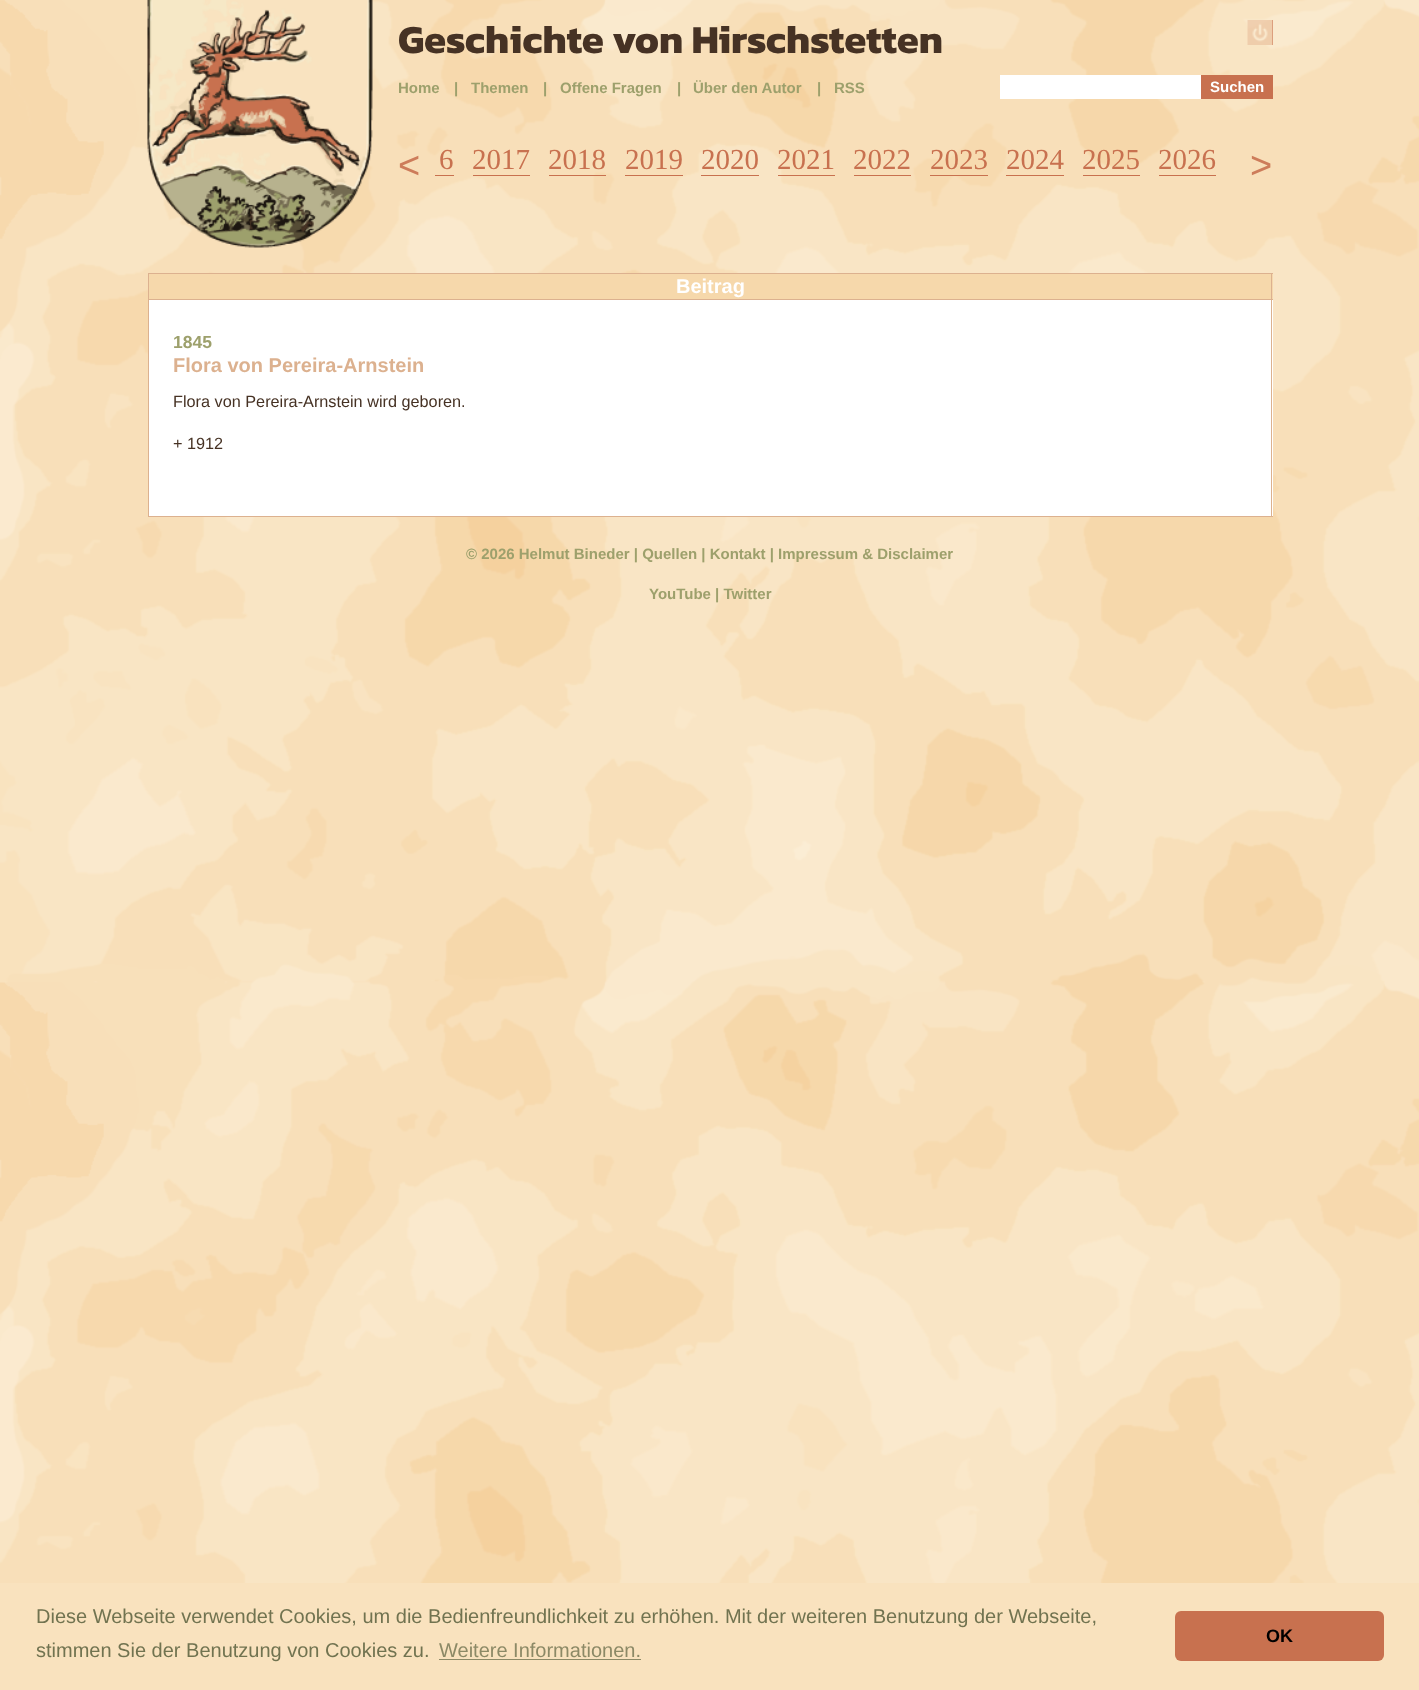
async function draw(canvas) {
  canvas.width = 1419;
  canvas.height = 1690;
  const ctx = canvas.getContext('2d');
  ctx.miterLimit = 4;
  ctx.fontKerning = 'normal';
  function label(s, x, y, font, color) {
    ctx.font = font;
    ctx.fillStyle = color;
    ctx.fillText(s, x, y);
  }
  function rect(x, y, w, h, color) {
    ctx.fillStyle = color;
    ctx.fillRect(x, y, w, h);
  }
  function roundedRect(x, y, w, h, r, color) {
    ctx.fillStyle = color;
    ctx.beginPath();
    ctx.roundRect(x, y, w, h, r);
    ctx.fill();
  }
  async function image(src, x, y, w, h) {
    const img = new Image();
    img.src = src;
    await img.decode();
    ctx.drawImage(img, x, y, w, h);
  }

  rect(0, 0, 1419, 1690, '#fff');
  await image('assets/img1.png', 0, 0, 1419, 1583);
  await image('assets/img2.png', 147, 0, 226, 248);
  rect(1272, 20, 1, 25, '#c8714f');
  await image('assets/img3.png', 1247, 20, 26, 25);
  label('Geschichte von Hirschstetten', 398, 53, 'bold 40px Kanit', '#463224');
  label('Home', 398, 93, 'bold 15px Liberation Sans', '#9da06c');
  label('|', 454, 93, 'bold 15px Liberation Sans', '#9da06c');
  label('Themen', 471, 93, 'bold 15px Liberation Sans', '#9da06c');
  label('|', 543, 93, 'bold 15px Liberation Sans', '#9da06c');
  label('Offene Fragen', 560, 93, 'bold 15px Liberation Sans', '#9da06c');
  label('|', 677, 93, 'bold 15px Liberation Sans', '#9da06c');
  label('Über den Autor', 693, 93, 'bold 15px Liberation Sans', '#9da06c');
  label('|', 817, 93, 'bold 15px Liberation Sans', '#9da06c');
  label('RSS', 834, 93, 'bold 15px Liberation Sans', '#9da06c');
  rect(1000, 75, 201, 24, '#fff');
  rect(1201, 75, 72, 24, '#c8714f');
  label('Suchen', 1210, 92, 'bold 15px Liberation Sans', '#fff');
  label('<', 398, 178, '38px Liberation Sans', '#cd7c5a');
  label('6', 439, 169, '29px Liberation Serif', '#c8714f');
  rect(435, 175, 19, 1, '#c8714f');
  label('2017', 472, 169, '29px Liberation Serif', '#c8714f');
  rect(473, 175, 57, 1, '#c8714f');
  label('2018', 548, 169, '29px Liberation Serif', '#c8714f');
  rect(549, 175, 57, 1, '#c8714f');
  label('2019', 625, 169, '29px Liberation Serif', '#c8714f');
  rect(625, 175, 58, 1, '#c8714f');
  label('2020', 701, 169, '29px Liberation Serif', '#c8714f');
  rect(701, 175, 58, 1, '#c8714f');
  label('2021', 777, 169, '29px Liberation Serif', '#c8714f');
  rect(778, 175, 57, 1, '#c8714f');
  label('2022', 853, 169, '29px Liberation Serif', '#c8714f');
  rect(854, 175, 57, 1, '#c8714f');
  label('2023', 930, 169, '29px Liberation Serif', '#c8714f');
  rect(930, 175, 58, 1, '#c8714f');
  label('2024', 1006, 169, '29px Liberation Serif', '#c8714f');
  rect(1006, 175, 58, 1, '#c8714f');
  label('2025', 1082, 169, '29px Liberation Serif', '#c8714f');
  rect(1083, 175, 57, 1, '#c8714f');
  label('2026', 1158, 169, '29px Liberation Serif', '#c8714f');
  rect(1159, 175, 57, 1, '#c8714f');
  label('>', 1250, 178, '38px Liberation Sans', '#cd7c5a');
  rect(149, 274, 1124, 25, '#f6d8ab');
  rect(148, 273, 1125, 1, '#dcb18f');
  rect(1271, 273, 1, 26, '#dcb18f');
  rect(148, 273, 1, 26, '#dcb18f');
  label('Beitrag', 676, 293, 'bold 20px Liberation Sans', '#fff');
  rect(149, 300, 1124, 216, '#fff');
  rect(148, 299, 1125, 1, '#dcb18f');
  rect(1271, 299, 1, 217, '#dcb18f');
  rect(148, 299, 1, 217, '#dcb18f');
  label('1845', 173, 348, 'bold 17.5px Liberation Sans', '#9da06c');
  label('Flora von Pereira-Arnstein', 173, 372, 'bold 20px Liberation Sans', '#dcb18f');
  label('Flora von Pereira-Arnstein wird geboren.', 173, 407, '16.25px Liberation Sans', '#463224');
  label('+ 1912', 173, 449, '16.25px Liberation Sans', '#463224');
  rect(148, 516, 1125, 1, '#dcb18f');
  label('© 2026 Helmut Bineder | Quellen | Kontakt | Impressum & Disclaimer', 466, 559, 'bold 15px Liberation Sans', '#9da06c');
  label('YouTube | Twitter', 649, 599, 'bold 15px Liberation Sans', '#9da06c');
  rect(0, 1583, 1419, 107, '#f9e2be');
  label('Diese Webseite verwendet Cookies, um die Bedienfreundlichkeit zu erhöhen. Mit der weiteren Benutzung der Webseite,', 36, 1623, '20px Liberation Sans', '#717350');
  label('stimmen Sie der Benutzung von Cookies zu.', 36, 1657, '20px Liberation Sans', '#717350');
  label('Weitere Informationen.', 439, 1657, '20px Liberation Sans', '#8c8966');
  rect(439, 1659, 202, 1, '#8c8966');
  roundedRect(1175, 1611, 209, 50, 6, '#c8714f');
  label('OK', 1266, 1642, 'bold 18px Liberation Sans', '#000');
}

draw(document.querySelector('canvas'));
